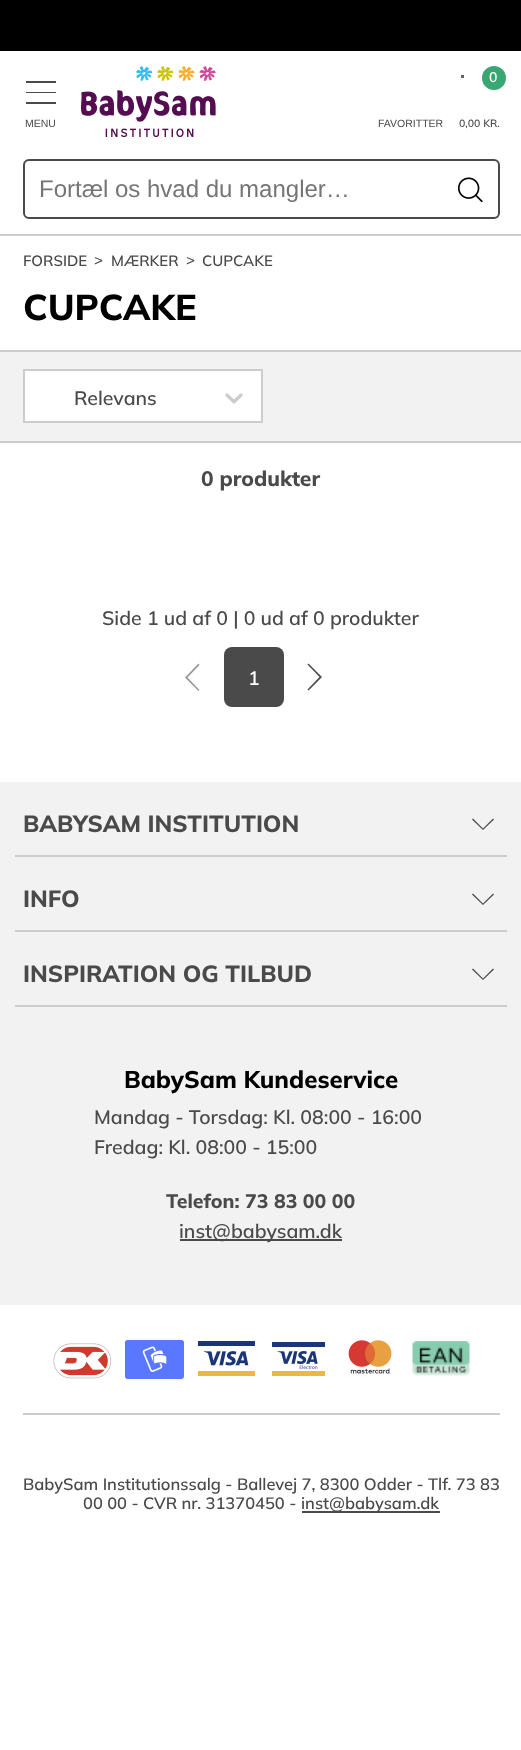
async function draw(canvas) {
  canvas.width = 521;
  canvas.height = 1750;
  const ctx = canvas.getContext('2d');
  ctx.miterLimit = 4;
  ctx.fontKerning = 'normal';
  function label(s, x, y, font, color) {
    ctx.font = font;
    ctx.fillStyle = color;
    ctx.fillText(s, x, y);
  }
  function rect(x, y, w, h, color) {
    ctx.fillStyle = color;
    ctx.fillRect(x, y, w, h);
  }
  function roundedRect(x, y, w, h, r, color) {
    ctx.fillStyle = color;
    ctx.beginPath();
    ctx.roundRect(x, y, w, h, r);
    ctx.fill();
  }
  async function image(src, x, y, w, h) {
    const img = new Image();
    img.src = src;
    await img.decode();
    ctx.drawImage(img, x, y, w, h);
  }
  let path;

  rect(0, 0, 521, 1750, '#fff');
  rect(0, 234, 521, 2, '#ccc');
  rect(0, 0, 521, 51, '#000');
  rect(26, 81, 30, 2, '#4a4a4a');
  rect(26, 92, 30, 1, '#4a4a4a');
  rect(26, 102, 30, 2, '#4a4a4a');
  label('MENU', 25, 127, '10.5px Liberation Sans', '#4a4a4a');
  await image('assets/img1.png', 81, 66, 135, 71);
  label('FAVORITTER', 378, 127, '10.5px Liberation Sans', '#4a4a4a');
  rect(461, 75, 3, 3, '#636363');
  ctx.fillStyle = '#3aa672';
  ctx.beginPath();
  ctx.arc(494, 78, 12, 0, 2 * Math.PI);
  ctx.fill();
  label('0', 489, 82, '600 14px Mulish', '#fff');
  label('0,00 KR.', 459, 127, '600 10.5px Mulish', '#4a4a4a');
  ctx.beginPath();
  ctx.roundRect(24, 160, 475, 58, 5);
  ctx.strokeStyle = '#4a4a4a';
  ctx.lineWidth = 2;
  ctx.stroke();
  label('Fortæl os hvad du mangler…', 39, 197, '24px Liberation Sans', '#757575');
  await image('assets/img2.png', 458, 177, 25, 26);
  label('FORSIDE', 23, 266, '600 15px Mulish', '#4a4a4a');
  label('>', 94, 265, '600 15px Mulish', '#4a4a4a');
  label('MÆRKER', 111, 266, '600 15px Mulish', '#4a4a4a');
  label('>', 186, 265, '600 15px Mulish', '#4a4a4a');
  label('CUPCAKE', 202, 266, '600 15px Mulish', '#4a4a4a');
  label('CUPCAKE', 23, 320, '800 36px Mulish', '#000');
  rect(0, 352, 521, 89, '#f2f2f2');
  rect(0, 350, 521, 2, '#ccc');
  rect(0, 441, 521, 2, '#ccc');
  ctx.fillStyle = '#fff';
  ctx.beginPath();
  ctx.rect(24, 370, 238, 52);
  ctx.fill();
  ctx.strokeStyle = '#ccc';
  ctx.stroke();
  label('Relevans', 74, 405, '600 19.5px Mulish', '#4a4a4a');
  await image('assets/img3.png', 225, 393, 18, 11);
  label('0 produkter', 201, 486, '800 21px Mulish', '#4a4a4a');
  label('Side 1 ud af 0 | 0 ud af 0 produkter', 102, 625, '600 19.5px Mulish', '#4a4a4a');
  ctx.fillStyle = '#999';
  path = new Path2D('M199.5 665L187.5 677.5L199.5 690L198.5 691L185 677.5L198.5 663.5');
  ctx.fill(path);
  roundedRect(224, 647, 60, 60, 8, '#4a4a4a');
  label('1', 248, 685, '600 19.5px Mulish', '#fff');
  ctx.fillStyle = '#4a4a4a';
  path = new Path2D('M307.5 689.5L319.5 677L307.5 664.5L308.5 663.5L322 677L308.5 690.5');
  ctx.fill(path);
  rect(0, 782, 521, 523, '#f2f2f2');
  rect(15, 855, 492, 2, '#ccc');
  label('BABYSAM INSTITUTION', 23, 832, '800 23.4px Mulish', '#4a4a4a');
  path = new Path2D('M473 818.5L483 828.5L493 818.5L494 819.5L483 830L472 819.5');
  ctx.fill(path);
  rect(15, 930, 492, 2, '#ccc');
  label('INFO', 23, 907, '800 23.4px Mulish', '#4a4a4a');
  path = new Path2D('M473 893.5L483 903.5L493 893.5L494 894.5L483 905L472 894.5');
  ctx.fill(path);
  rect(15, 1005, 492, 2, '#ccc');
  label('INSPIRATION OG TILBUD', 23, 982, '800 23.4px Mulish', '#4a4a4a');
  path = new Path2D('M473 968.5L483 978.5L493 968.5L494 969.5L483 980L472 969.5');
  ctx.fill(path);
  label('BabySam Kundeservice', 124, 1088, '800 24px Mulish', '#000');
  label('Mandag - Torsdag: Kl. 08:00 - 16:00', 94, 1124, '600 19.5px Mulish', '#4a4a4a');
  label('Fredag: Kl. 08:00 - 15:00', 94, 1154, '600 19.5px Mulish', '#4a4a4a');
  label('Telefon: 73 83 00 00', 166, 1208, '800 19.5px Mulish', '#4a4a4a');
  rect(180, 1239, 162, 2, '#4a4a4a');
  label('inst@babysam.dk', 179, 1238, '600 19.5px Mulish', '#4a4a4a');
  rect(23, 1413, 477, 2, '#ccc');
  await image('assets/img4.png', 53, 1343, 59, 36);
  await image('assets/img5.png', 125, 1340, 59, 39);
  await image('assets/img6.png', 198, 1341, 57, 35);
  await image('assets/img7.png', 272, 1342, 53, 34);
  await image('assets/img8.png', 348, 1340, 44, 34);
  await image('assets/img9.png', 412, 1341, 58, 35);
  label('BabySam Institutionssalg - Ballevej 7, 8300 Odder - Tlf. 73 83', 23, 1490, '600 16.5px Mulish', '#4a4a4a');
  label('00 00 - CVR nr. 31370450 -', 83, 1509, '600 16.5px Mulish', '#4a4a4a');
  rect(302, 1511, 138, 2, '#4a4a4a');
  label('inst@babysam.dk', 301, 1509, '600 16.5px Mulish', '#4a4a4a');
}

draw(document.querySelector('canvas'));
